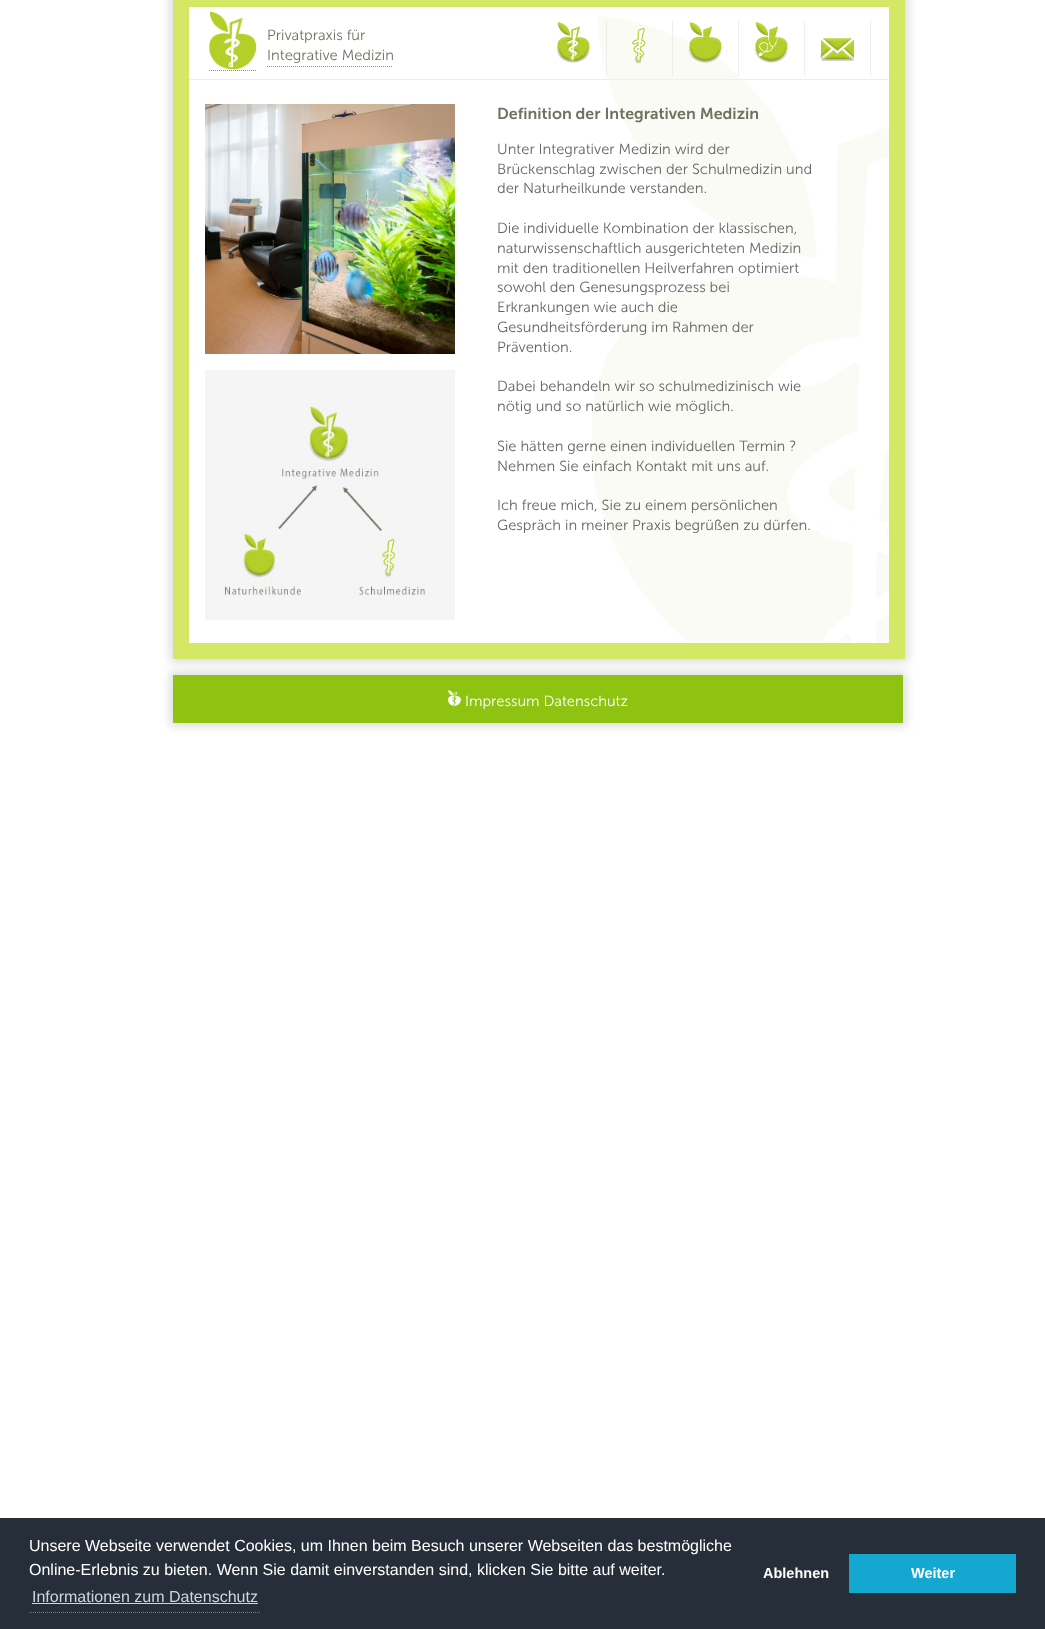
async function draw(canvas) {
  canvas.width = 1045;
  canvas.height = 1629;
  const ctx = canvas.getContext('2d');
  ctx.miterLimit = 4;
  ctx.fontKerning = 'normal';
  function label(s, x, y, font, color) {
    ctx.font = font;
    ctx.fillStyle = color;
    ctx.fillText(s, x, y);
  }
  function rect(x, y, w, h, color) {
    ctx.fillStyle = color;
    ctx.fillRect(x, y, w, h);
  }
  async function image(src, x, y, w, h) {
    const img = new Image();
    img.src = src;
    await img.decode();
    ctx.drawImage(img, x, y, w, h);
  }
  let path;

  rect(0, 0, 1045, 1629, '#fff');
  ctx.save();
  path = new Path2D('M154 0H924V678H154ZM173-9H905V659H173Z');
  ctx.clip(path, 'evenodd');
  ctx.fillStyle = '#d9dbdc';
  ctx.filter = 'blur(5px)';
  ctx.beginPath();
  ctx.rect(170, -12, 738, 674);
  ctx.fill();
  ctx.filter = 'none';
  ctx.restore();
  await image('assets/img7.png', 591, 16, 298, 627);
  ctx.strokeStyle = '#d4e866';
  ctx.lineWidth = 16;
  ctx.strokeRect(181, -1, 716, 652);
  path = new Path2D('M209 70.5H257');
  ctx.strokeStyle = '#5893f5';
  ctx.lineWidth = 1;
  ctx.setLineDash([1, 1]);
  ctx.stroke(path);
  path = new Path2D('M267 66.5H393');
  ctx.stroke(path);
  await image('assets/img1.png', 209, 11, 48, 59);
  label('Privatpraxis für', 267, 40, '300 14.7px "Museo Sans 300"', '#727262');
  label('Integrative Medizin', 267, 60, '300 14.7px "Museo Sans 300"', '#727262');
  rect(606, 21, 1, 55, '#eee');
  await image('assets/img2.png', 556, 22, 34, 41);
  rect(672, 21, 1, 55, '#eee');
  await image('assets/img3.png', 632, 27, 14, 37);
  rect(738, 21, 1, 55, '#eee');
  await image('assets/img4.png', 688, 22, 34, 41);
  rect(804, 21, 1, 55, '#eee');
  await image('assets/img5.png', 754, 22, 34, 41);
  rect(870, 21, 1, 55, '#eee');
  await image('assets/img6.png', 820, 38, 34, 23);
  rect(189, 79, 700, 1, '#eee');
  await image('assets/img8.png', 205, 104, 250, 250);
  rect(205, 370, 250, 250, '#f5f5f5');
  await image('assets/img9.png', 224, 406, 202, 190);
  label('Definition der Integrativen Medizin', 497, 119, '600 16px "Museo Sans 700"', '#727262');
  label('Unter Integrativer Medizin wird der', 497, 154, '300 14.7px "Museo Sans 300"', '#666');
  label('Brückenschlag zwischen der Schulmedizin und', 497, 174, '300 14.7px "Museo Sans 300"', '#666');
  label('der Naturheilkunde verstanden.', 497, 193, '300 14.7px "Museo Sans 300"', '#666');
  label('Die individuelle Kombination der klassischen,', 497, 233, '300 14.7px "Museo Sans 300"', '#666');
  label('naturwissenschaftlich ausgerichteten Medizin', 497, 253, '300 14.7px "Museo Sans 300"', '#666');
  label('mit den traditionellen Heilverfahren optimiert', 497, 273, '300 14.7px "Museo Sans 300"', '#666');
  label('sowohl den Genesungsprozess bei', 497, 292, '300 14.7px "Museo Sans 300"', '#666');
  label('Erkrankungen wie auch die', 497, 312, '300 14.7px "Museo Sans 300"', '#666');
  label('Gesundheitsförderung im Rahmen der', 497, 332, '300 14.7px "Museo Sans 300"', '#666');
  label('Prävention.', 497, 352, '300 14.7px "Museo Sans 300"', '#666');
  label('Dabei behandeln wir so schulmedizinisch wie', 497, 391, '300 14.7px "Museo Sans 300"', '#666');
  label('nötig und so natürlich wie möglich.', 497, 411, '300 14.7px "Museo Sans 300"', '#666');
  label('Sie hätten gerne einen individuellen Termin ?', 497, 451, '300 14.7px "Museo Sans 300"', '#666');
  label('Nehmen Sie einfach Kontakt mit uns auf.', 497, 471, '300 14.7px "Museo Sans 300"', '#666');
  label('Ich freue mich, Sie zu einem persönlichen', 497, 510, '300 14.7px "Museo Sans 300"', '#666');
  label('Gespräch in meiner Praxis begrüßen zu dürfen.', 497, 530, '300 14.7px "Museo Sans 300"', '#666');
  ctx.fillStyle = '#d9dbdc';
  ctx.filter = 'blur(5px)';
  ctx.beginPath();
  ctx.rect(170, 672, 736, 54);
  ctx.fill();
  ctx.filter = 'none';
  rect(173, 675, 730, 48, '#8ec411');
  await image('assets/img10.png', 448, 690, 13, 16);
  label('Impressum Datenschutz', 465, 706, '300 14.7px "Museo Sans 300"', '#fff');
  rect(0, 1518, 1045, 111, '#252e39');
  label('Unsere Webseite verwendet Cookies, um Ihnen beim Besuch unserer Webseiten das bestmögliche', 29, 1551, '16px Liberation Sans', '#fff');
  label('Online-Erlebnis zu bieten. Wenn Sie damit einverstanden sind, klicken Sie bitte auf weiter.', 29, 1575, '16px Liberation Sans', '#fff');
  path = new Path2D('M29 1612.5H261');
  ctx.strokeStyle = '#4e7fcf';
  ctx.stroke(path);
  label('Informationen zum Datenschutz', 32, 1602, '16px Liberation Sans', '#d3d5d7');
  rect(32, 1603, 226, 1, '#d3d5d7');
  label('Ablehnen', 763, 1578, 'bold 14.5px Liberation Sans', '#fff');
  rect(849, 1554, 167, 39, '#14a7d0');
  label('Weiter', 911, 1578, 'bold 14.5px Liberation Sans', '#fff');
}

draw(document.querySelector('canvas'));
